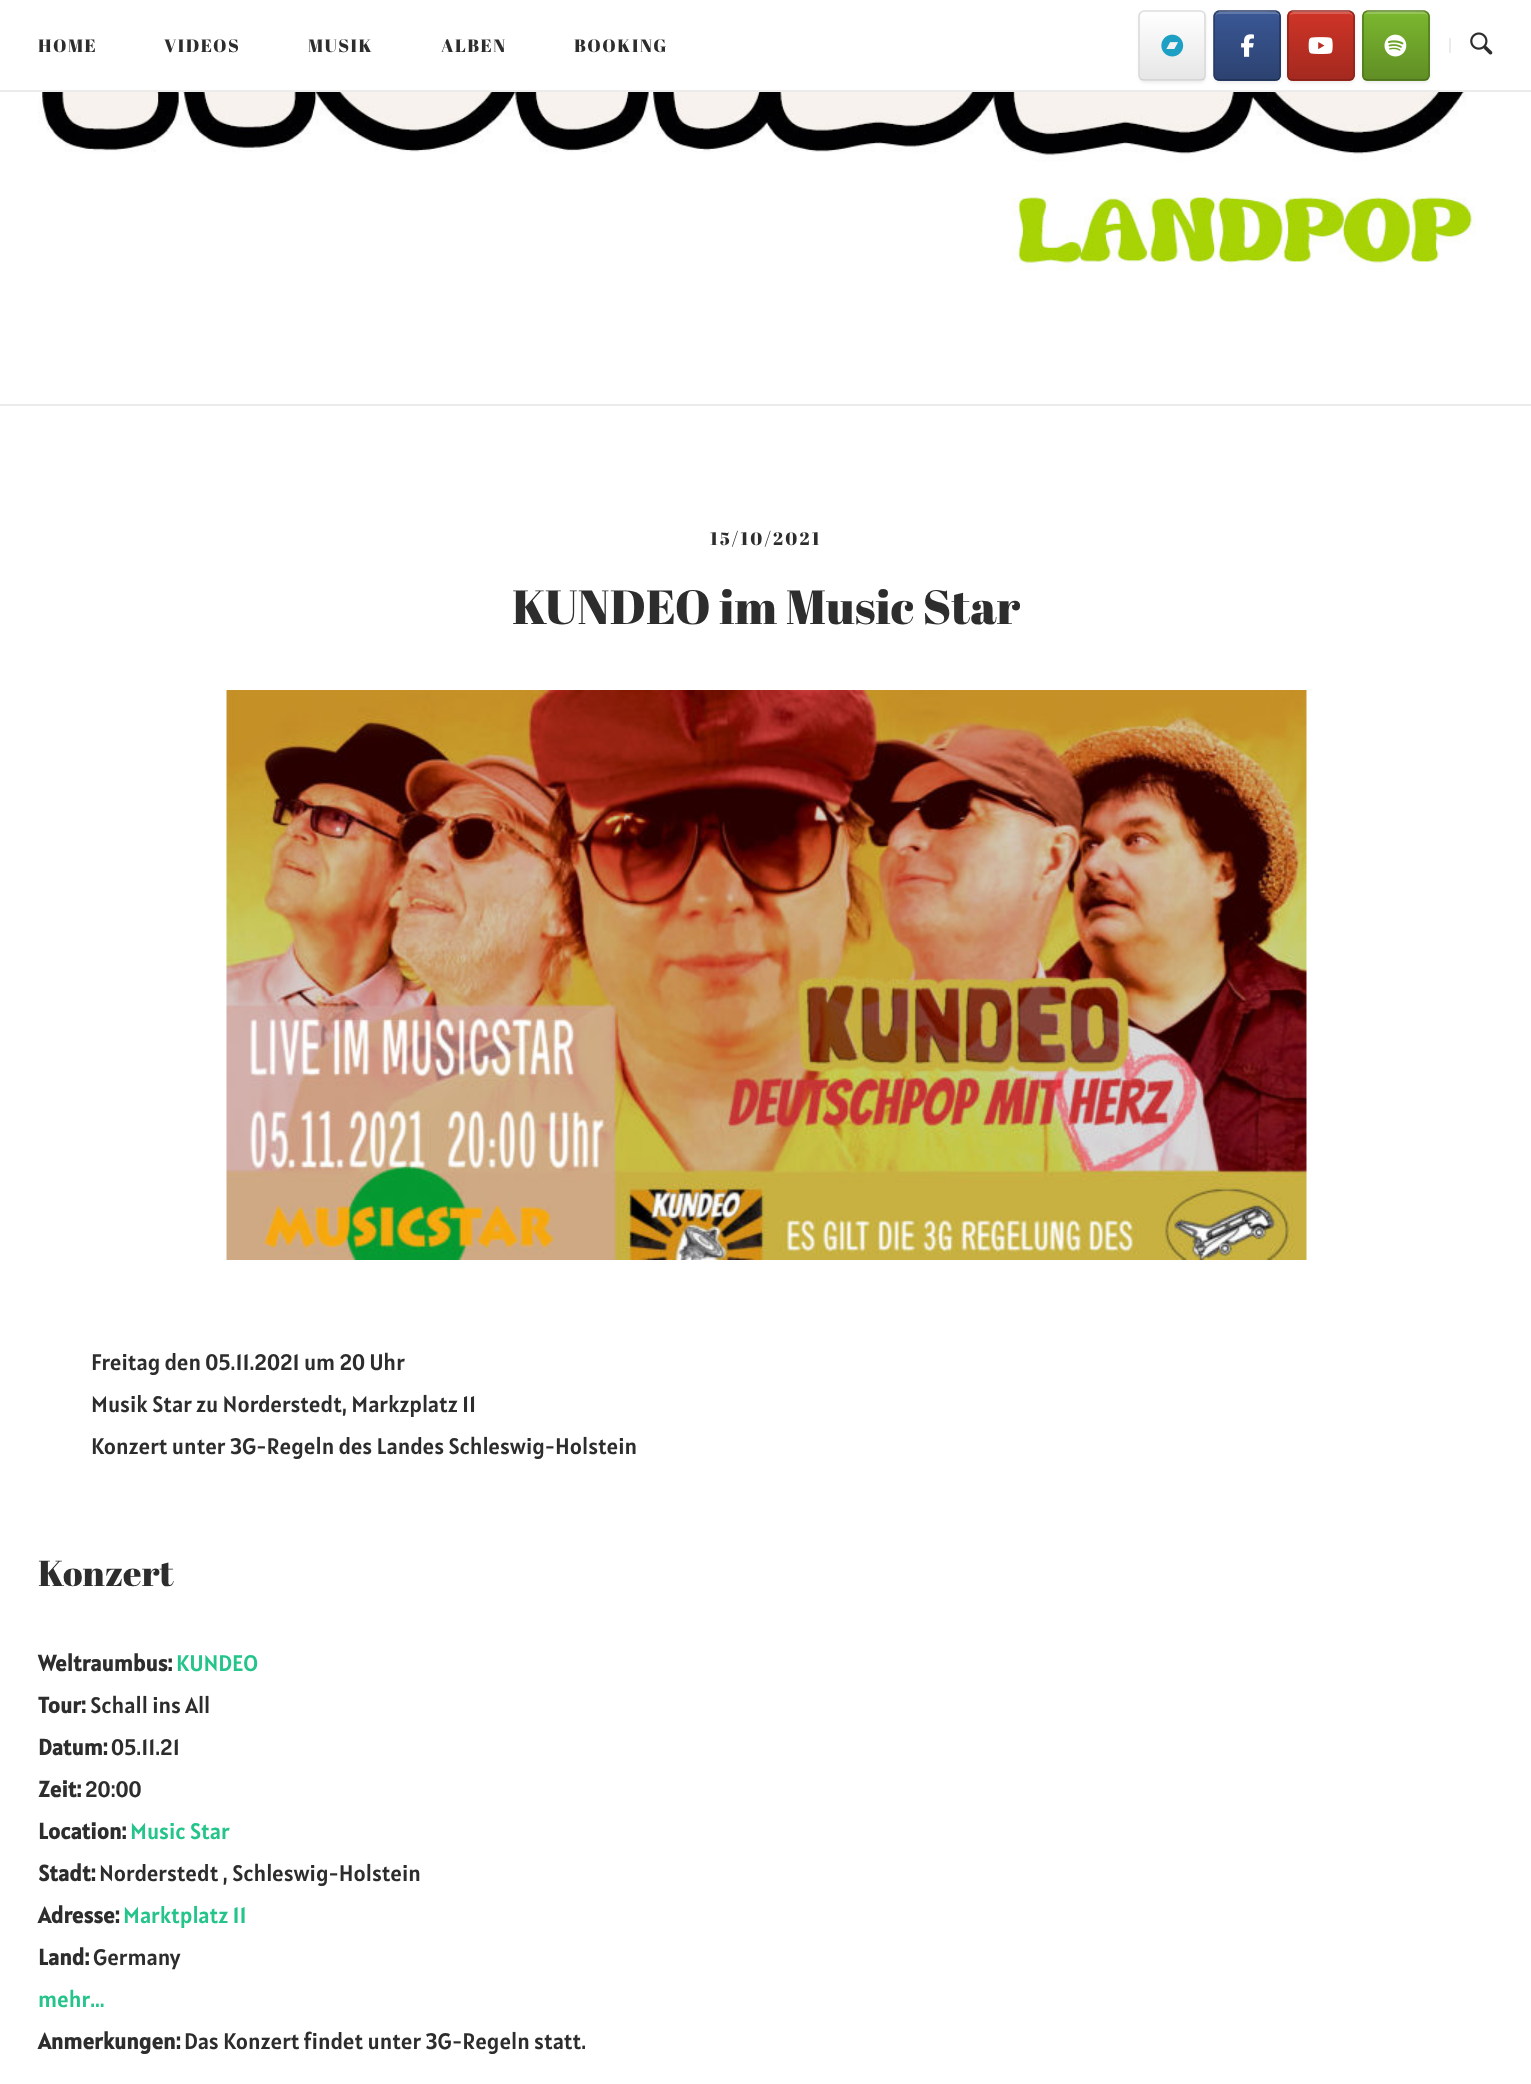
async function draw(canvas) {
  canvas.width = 1531;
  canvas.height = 2084;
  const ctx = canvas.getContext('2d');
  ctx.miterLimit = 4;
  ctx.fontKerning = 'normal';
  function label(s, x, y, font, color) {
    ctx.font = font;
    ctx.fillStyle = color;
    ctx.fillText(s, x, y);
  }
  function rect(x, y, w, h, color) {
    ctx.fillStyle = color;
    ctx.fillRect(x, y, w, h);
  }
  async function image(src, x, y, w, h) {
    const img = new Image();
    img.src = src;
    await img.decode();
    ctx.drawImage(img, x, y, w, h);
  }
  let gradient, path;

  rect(0, 0, 1531, 2084, '#fff');
  rect(0, 404, 1531, 2, '#ebebeb');
  rect(0, 90, 1531, 2, '#ebebeb');
  ctx.letterSpacing = '1.5px';
  label('HOME', 38, 52, '18px Abril Fatface', '#2d2d2d');
  label('VIDEOS', 164, 52, '18px Abril Fatface', '#2d2d2d');
  label('MUSIK', 308, 52, '18px Abril Fatface', '#2d2d2d');
  label('ALBEN', 441, 52, '18px Abril Fatface', '#2d2d2d');
  label('BOOKING', 574, 52, '18px Abril Fatface', '#2d2d2d');
  ctx.fillStyle = '#00000012';
  ctx.filter = 'blur(1.5px)';
  ctx.beginPath();
  ctx.roundRect(1139, 12, 67, 71, 6);
  ctx.fill();
  ctx.filter = 'none';
  ctx.save();
  ctx.beginPath();
  ctx.roundRect(1139, 11, 67, 70, 6);
  ctx.clip();
  gradient = ctx.createLinearGradient(1140, 80, 1140, 12);
  gradient.addColorStop(0, '#e6e6e6');
  gradient.addColorStop(1, '#fff');
  ctx.fillStyle = gradient;
  ctx.fillRect(1139, 12, 67, 68);
  gradient = ctx.createLinearGradient(1140, 147, 1140, 80);
  gradient.addColorStop(0, '#e6e6e6');
  gradient.addColorStop(1, '#fff');
  ctx.fillStyle = gradient;
  ctx.fillRect(1139, 80, 67, 1);
  ctx.restore();
  ctx.fillStyle = '#ffffff33';
  path = new Path2D('M1144 14H1191C1195 14 1204 12 1204 18V78C1205 77 1205 76 1205 75V17C1205 14 1203 12 1200 12H1145C1142 12 1140 14 1140 17V18C1140 15 1142 14 1144 14Z');
  ctx.fill(path);
  path = new Path2D('M1140.5 12.5C1141.5 12 1143 11 1144 11H1200.5C1201.5 11 1203 12 1204 12.5');
  ctx.strokeStyle = '#dedede';
  ctx.lineWidth = 1.5;
  ctx.stroke(path);
  path = new Path2D('M1204 12.5C1204.5 13.5 1205 15 1205 16V75.5C1205 76.5 1204.5 78 1204 79');
  ctx.strokeStyle = '#d9d9d9';
  ctx.stroke(path);
  path = new Path2D('M1204 79C1203 79.5 1201.5 80 1200.5 80H1144C1143 80 1141.5 79.5 1140.5 79');
  ctx.strokeStyle = '#d1d1d1';
  ctx.stroke(path);
  path = new Path2D('M1140.5 79C1140 78 1139 76.5 1139 75.5V16C1139 15 1140 13.5 1140.5 12.5');
  ctx.strokeStyle = '#d9d9d9';
  ctx.stroke(path);
  await image('assets/img1.png', 1161, 34, 23, 23);
  ctx.fillStyle = '#00000012';
  ctx.filter = 'blur(1.5px)';
  ctx.beginPath();
  ctx.roundRect(1214, 12, 67, 71, 6);
  ctx.fill();
  ctx.filter = 'none';
  ctx.save();
  ctx.beginPath();
  ctx.roundRect(1214, 11, 67, 70, 6);
  ctx.clip();
  gradient = ctx.createLinearGradient(1215, 80, 1215, 12);
  gradient.addColorStop(0, '#2c4270');
  gradient.addColorStop(1, '#3a5795');
  ctx.fillStyle = gradient;
  ctx.fillRect(1214, 12, 67, 68);
  gradient = ctx.createLinearGradient(1215, 147, 1215, 80);
  gradient.addColorStop(0, '#2c4270');
  gradient.addColorStop(1, '#3a5795');
  ctx.fillStyle = gradient;
  ctx.fillRect(1214, 80, 67, 1);
  ctx.restore();
  ctx.fillStyle = '#6179aa';
  path = new Path2D('M1219 14H1275C1278 14 1280 15 1280 18C1280 10 1272 12 1266 12H1229C1223 12 1215 10 1215 18C1215 15 1217 14 1219 14Z');
  ctx.fill(path);
  path = new Path2D('M1215.5 12.5C1216.5 12 1218 11 1219 11H1275.5C1276.5 11 1278 12 1279 12.5');
  ctx.strokeStyle = '#273b65';
  ctx.stroke(path);
  path = new Path2D('M1279 12.5C1279.5 13.5 1280 15 1280 16V75.5C1280 76.5 1279.5 78 1279 79');
  ctx.strokeStyle = '#25375e';
  ctx.stroke(path);
  path = new Path2D('M1279 79C1278 79.5 1276.5 80 1275.5 80H1219C1218 80 1216.5 79.5 1215.5 79');
  ctx.strokeStyle = '#203053';
  ctx.stroke(path);
  path = new Path2D('M1215.5 79C1215 78 1214 76.5 1214 75.5V16C1214 15 1215 13.5 1215.5 12.5');
  ctx.strokeStyle = '#25375e';
  ctx.stroke(path);
  await image('assets/img2.png', 1241, 34, 13, 23);
  ctx.fillStyle = '#00000012';
  ctx.filter = 'blur(1.5px)';
  ctx.beginPath();
  ctx.roundRect(1287, 12, 68, 71, 6);
  ctx.fill();
  ctx.filter = 'none';
  ctx.save();
  ctx.beginPath();
  ctx.roundRect(1287, 11, 68, 70, 6);
  ctx.clip();
  gradient = ctx.createLinearGradient(1289, 80, 1289, 12);
  gradient.addColorStop(0, '#a4291f');
  gradient.addColorStop(1, '#cf3427');
  ctx.fillStyle = gradient;
  ctx.fillRect(1287, 12, 68, 68);
  gradient = ctx.createLinearGradient(1289, 147, 1289, 80);
  gradient.addColorStop(0, '#a4291f');
  gradient.addColorStop(1, '#cf3427');
  ctx.fillStyle = gradient;
  ctx.fillRect(1287, 80, 68, 1);
  ctx.restore();
  ctx.fillStyle = '#d85d52';
  path = new Path2D('M1293 14H1349C1351 14 1353 15 1353 18V17C1353 14 1351 12 1348 12H1294C1292 12 1290 13 1290 15Z');
  ctx.fill(path);
  path = new Path2D('M1289 12.5C1290 12 1291.5 11 1292.5 11H1349C1350 11 1351.5 12 1352.5 12.5');
  ctx.strokeStyle = '#97261c';
  ctx.stroke(path);
  path = new Path2D('M1352.5 12.5C1353 13.5 1354 15 1354 16V75.5C1354 76.5 1353 78 1352.5 79');
  ctx.strokeStyle = '#8f241b';
  ctx.stroke(path);
  path = new Path2D('M1352.5 79C1351.5 79.5 1350 80 1349 80H1292.5C1291.5 80 1290 79.5 1289 79');
  ctx.strokeStyle = '#822118';
  ctx.stroke(path);
  path = new Path2D('M1289 79C1288.5 78 1288 76.5 1288 75.5V16C1288 15 1288.5 13.5 1289 12.5');
  ctx.strokeStyle = '#8f241b';
  ctx.stroke(path);
  await image('assets/img3.png', 1308, 37, 25, 17);
  ctx.fillStyle = '#00000012';
  ctx.filter = 'blur(1.5px)';
  ctx.beginPath();
  ctx.roundRect(1362, 12, 68, 71, 6);
  ctx.fill();
  ctx.filter = 'none';
  ctx.save();
  ctx.beginPath();
  ctx.roundRect(1362, 11, 68, 70, 6);
  ctx.clip();
  gradient = ctx.createLinearGradient(1364, 80, 1364, 12);
  gradient.addColorStop(0, '#608e25');
  gradient.addColorStop(1, '#7bb72f');
  ctx.fillStyle = gradient;
  ctx.fillRect(1362, 12, 68, 68);
  gradient = ctx.createLinearGradient(1364, 147, 1364, 80);
  gradient.addColorStop(0, '#608e25');
  gradient.addColorStop(1, '#7bb72f');
  ctx.fillStyle = gradient;
  ctx.fillRect(1362, 80, 68, 1);
  ctx.restore();
  ctx.fillStyle = '#95c559';
  path = new Path2D('M1368 14H1424C1426 14 1428 15 1428 18C1428 10 1420 12 1414 12H1378C1372 12 1364 10 1364 18C1364 15 1365 14 1368 14Z');
  ctx.fill(path);
  path = new Path2D('M1364 12.5C1365 12 1366.5 11 1367.5 11H1424C1425 11 1426.5 12 1427.5 12.5');
  ctx.strokeStyle = '#588221';
  ctx.stroke(path);
  path = new Path2D('M1427.5 12.5C1428 13.5 1429 15 1429 16V75.5C1429 76.5 1428 78 1427.5 79');
  ctx.strokeStyle = '#527a1f';
  ctx.stroke(path);
  path = new Path2D('M1427.5 79C1426.5 79.5 1425 80 1424 80H1367.5C1366.5 80 1365 79.5 1364 79');
  ctx.strokeStyle = '#4a6e1c';
  ctx.stroke(path);
  path = new Path2D('M1364 79C1363.5 78 1363 76.5 1363 75.5V16C1363 15 1363.5 13.5 1364 12.5');
  ctx.strokeStyle = '#527a1f';
  ctx.stroke(path);
  await image('assets/img4.png', 1384, 34, 23, 23);
  rect(1449, 38, 2, 15, '#ebebeb');
  await image('assets/img5.png', 1470, 32, 23, 23);
  await image('assets/img6.png', 38, 92, 1456, 179);
  ctx.letterSpacing = '2.25px';
  label('15/10/2021', 710, 545, '18px Abril Fatface', '#2d2d2d');
  ctx.letterSpacing = '0px';
  label('KUNDEO im Music Star', 512, 624, '48px Abril Fatface', '#2d2d2d');
  await image('assets/img7.png', 226, 690, 1081, 570);
  label('Freitag den 05.11.2021 um 20 Uhr', 91, 1370, '22.5px Alatsi', '#2d2d2d');
  label('Musik Star zu Norderstedt, Markzplatz 11', 91, 1412, '22.5px Alatsi', '#2d2d2d');
  label('Konzert unter 3G-Regeln des Landes Schleswig-Holstein', 91, 1454, '22.5px Alatsi', '#2d2d2d');
  label('Konzert', 38, 1586, '36px Abril Fatface', '#2d2d2d');
  label('Weltraumbus:', 38, 1671, 'bold 22.5px Alatsi', '#2d2d2d');
  label('KUNDEO', 176, 1671, '22.5px Alatsi', '#24c48a');
  label('Tour:', 38, 1713, 'bold 22.5px Alatsi', '#2d2d2d');
  label('Schall ins All', 90, 1713, '22.5px Alatsi', '#2d2d2d');
  label('Datum:', 38, 1755, 'bold 22.5px Alatsi', '#2d2d2d');
  label('05.11.21', 111, 1755, '22.5px Alatsi', '#2d2d2d');
  label('Zeit:', 38, 1797, 'bold 22.5px Alatsi', '#2d2d2d');
  label('20:00', 85, 1797, '22.5px Alatsi', '#2d2d2d');
  label('Location:', 38, 1839, 'bold 22.5px Alatsi', '#2d2d2d');
  label('Music Star', 130, 1839, '22.5px Alatsi', '#24c48a');
  label('Stadt:', 38, 1881, 'bold 22.5px Alatsi', '#2d2d2d');
  label('Norderstedt , Schleswig-Holstein', 99, 1881, '22.5px Alatsi', '#2d2d2d');
  label('Adresse:', 38, 1923, 'bold 22.5px Alatsi', '#2d2d2d');
  label('Marktplatz 11', 123, 1923, '22.5px Alatsi', '#24c48a');
  label('Land:', 38, 1965, 'bold 22.5px Alatsi', '#2d2d2d');
  label('Germany', 93, 1965, '22.5px Alatsi', '#2d2d2d');
  label('mehr...', 38, 2007, '22.5px Alatsi', '#24c48a');
  label('Anmerkungen:', 38, 2049, 'bold 22.5px Alatsi', '#2d2d2d');
  label('Das Konzert findet unter 3G-Regeln statt.', 184, 2049, '22.5px Alatsi', '#2d2d2d');
}

draw(document.querySelector('canvas'));
